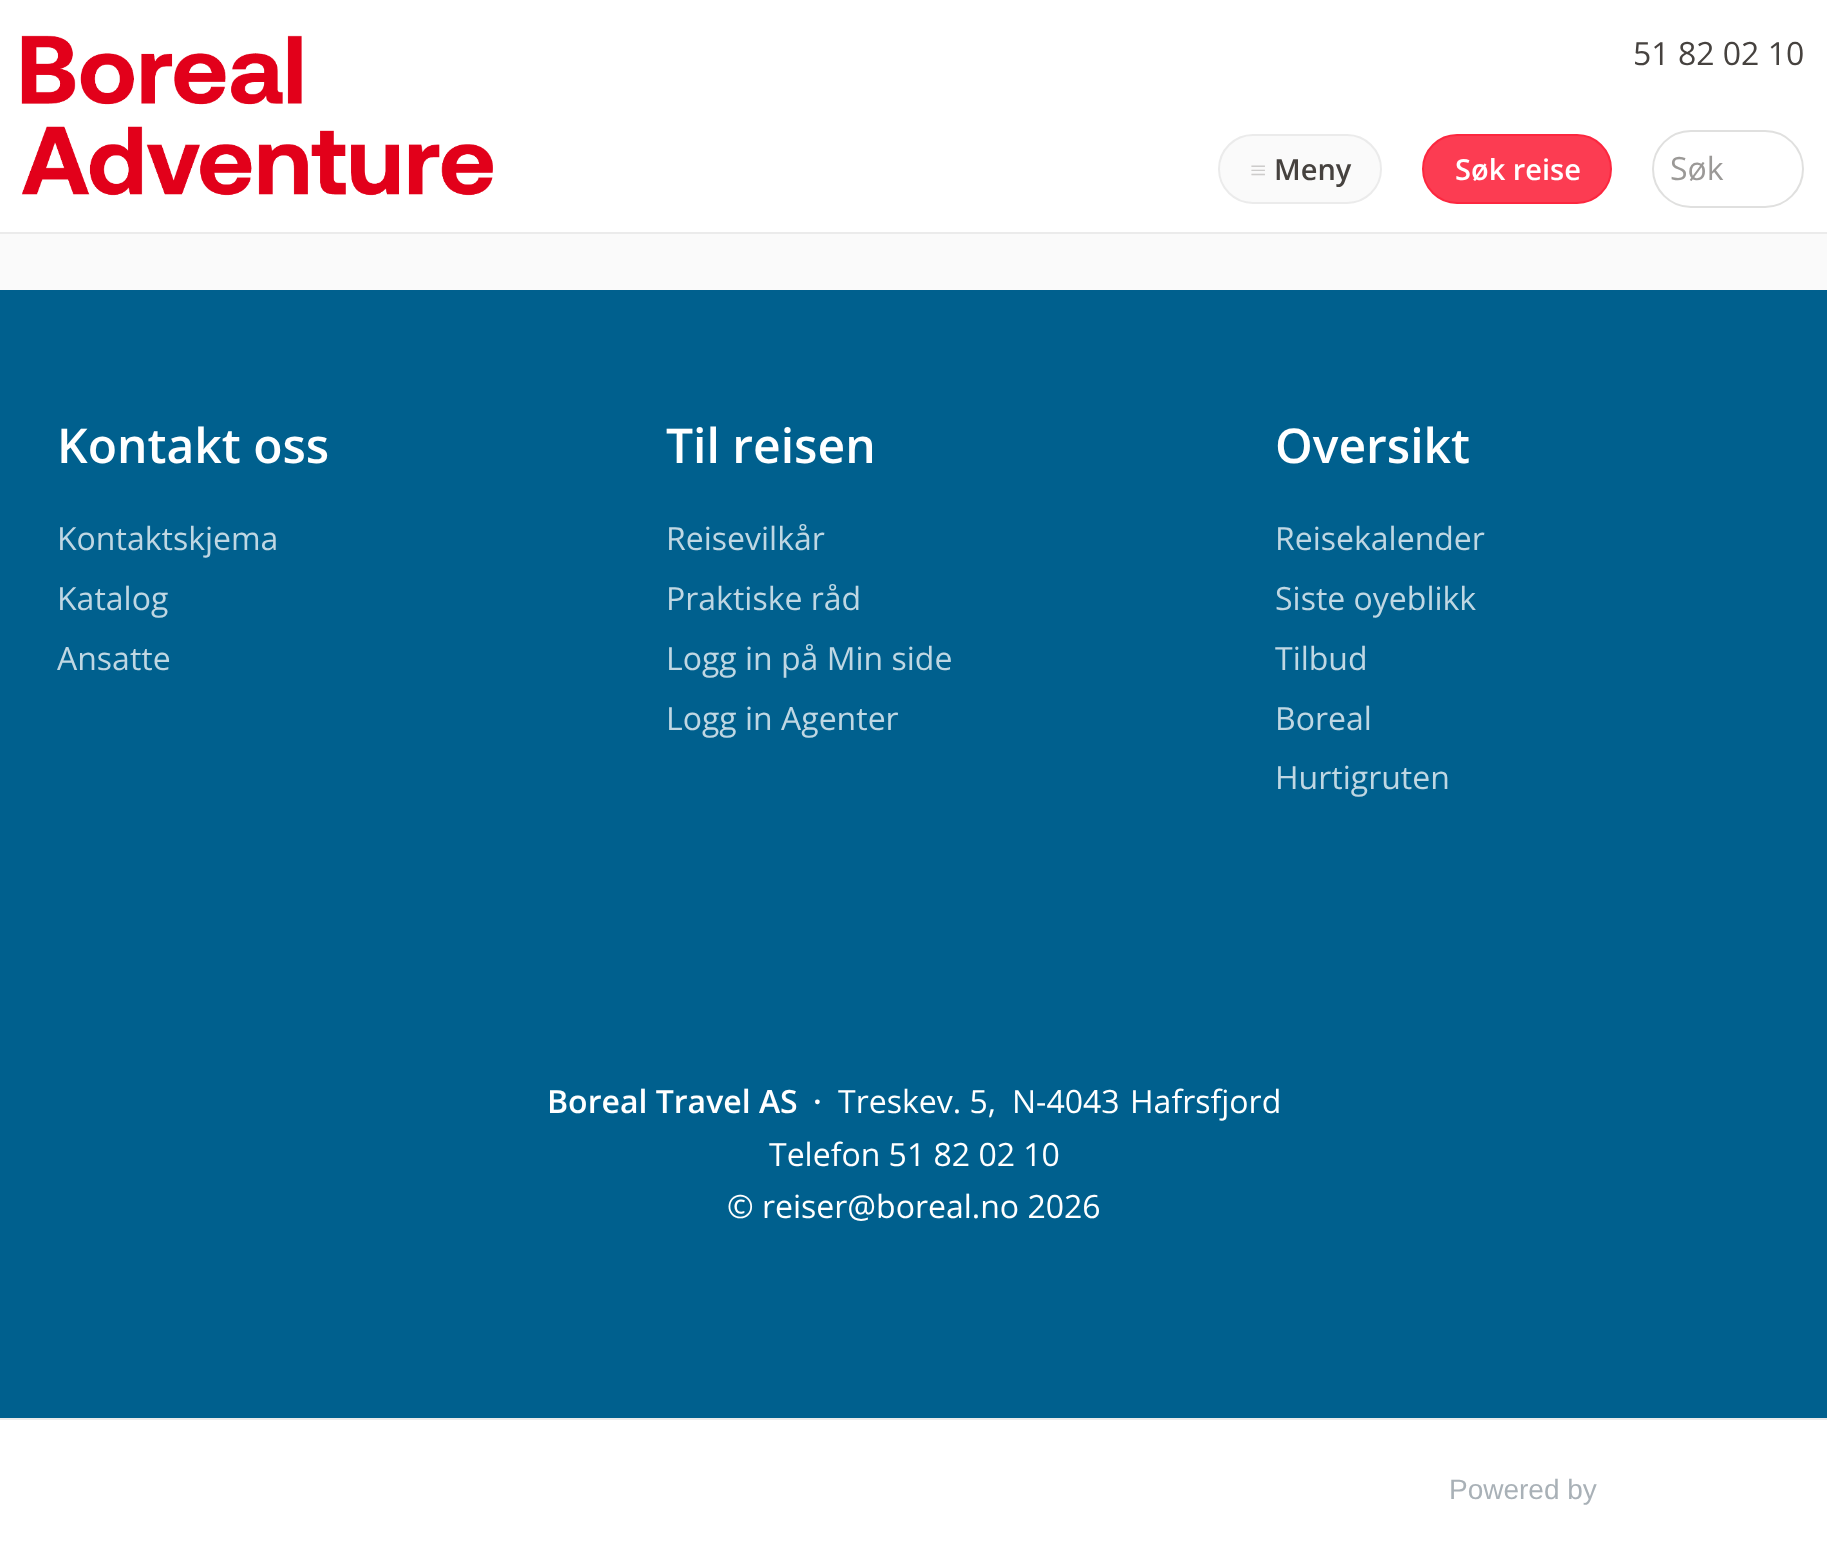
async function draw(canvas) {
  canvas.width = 1827;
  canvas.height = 1562;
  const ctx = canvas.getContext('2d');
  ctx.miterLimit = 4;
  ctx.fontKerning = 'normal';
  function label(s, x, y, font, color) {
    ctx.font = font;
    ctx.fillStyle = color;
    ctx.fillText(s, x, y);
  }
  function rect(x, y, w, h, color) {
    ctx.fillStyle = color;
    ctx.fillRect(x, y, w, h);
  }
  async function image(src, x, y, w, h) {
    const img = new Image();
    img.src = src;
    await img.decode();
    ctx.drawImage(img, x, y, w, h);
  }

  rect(0, 0, 1827, 1562, '#fafafa');
  rect(0, 0, 1827, 232, '#fff');
  rect(0, 232, 1827, 2, '#ebebeb');
  await image('assets/img1.png', 21, 35, 472, 161);
  label('51 82 02 10', 1633, 65, '32px Open Sans', '#46423f');
  ctx.fillStyle = '#fafafa';
  ctx.beginPath();
  ctx.roundRect(1219, 135, 162, 68, 34);
  ctx.fill();
  ctx.strokeStyle = '#ebebeb';
  ctx.lineWidth = 2;
  ctx.stroke();
  label('≡', 1250, 180, '29px Liberation Serif', '#cdcccb');
  label('Meny', 1274, 180, '600 29px Open Sans', '#46423f');
  ctx.fillStyle = '#fc3c52';
  ctx.beginPath();
  ctx.roundRect(1423, 135, 188, 68, 34);
  ctx.fill();
  ctx.strokeStyle = '#fc273f';
  ctx.stroke();
  label('Søk reise', 1455, 180, '600 29px Open Sans', '#fff');
  ctx.beginPath();
  ctx.roundRect(1653, 131, 150, 76, 38);
  ctx.strokeStyle = '#e0e0df';
  ctx.stroke();
  label('Søk', 1670, 180, '32px Open Sans', '#9b9997');
  rect(0, 290, 1827, 1128, '#00608e');
  label('Kontakt oss', 57, 463, '600 48px Open Sans', '#fff');
  label('Kontaktskjema', 57, 550, '32px Open Sans', '#bfd7e3');
  label('Katalog', 57, 610, '32px Open Sans', '#bfd7e3');
  label('Ansatte', 57, 670, '32px Open Sans', '#bfd7e3');
  label('Til reisen', 666, 463, '600 48px Open Sans', '#fff');
  label('Reisevilkår', 666, 550, '32px Open Sans', '#bfd7e3');
  label('Praktiske råd', 666, 610, '32px Open Sans', '#bfd7e3');
  label('Logg in på Min side', 666, 670, '32px Open Sans', '#bfd7e3');
  label('Logg in Agenter', 666, 730, '32px Open Sans', '#bfd7e3');
  label('Oversikt', 1275, 463, '600 48px Open Sans', '#fff');
  label('Reisekalender', 1275, 550, '32px Open Sans', '#bfd7e3');
  label('Siste oyeblikk', 1275, 610, '32px Open Sans', '#bfd7e3');
  label('Tilbud', 1275, 670, '32px Open Sans', '#bfd7e3');
  label('Boreal', 1275, 730, '32px Open Sans', '#bfd7e3');
  label('Hurtigruten', 1275, 789, '32px Open Sans', '#bfd7e3');
  label('Boreal Travel AS', 547, 1113, '600 32px Open Sans', '#fff');
  label('·', 813, 1113, '600 32px Open Sans', '#fff');
  label('Treskev. 5,', 838, 1113, '32px Open Sans', '#fff');
  label('N-4043', 1012, 1113, '32px Open Sans', '#fff');
  label('Hafrsfjord', 1130, 1113, '32px Open Sans', '#fff');
  label('Telefon 51 82 02 10', 769, 1166, '32px Open Sans', '#fff');
  label('© reiser@boreal.no 2026', 727, 1218, '32px Open Sans', '#fff');
  rect(0, 1420, 1827, 142, '#fff');
  rect(0, 1418, 1827, 2, '#ebebeb');
  label('Powered by', 1449, 1499, '28px Liberation Sans', '#a9b1b7');
}

draw(document.querySelector('canvas'));
